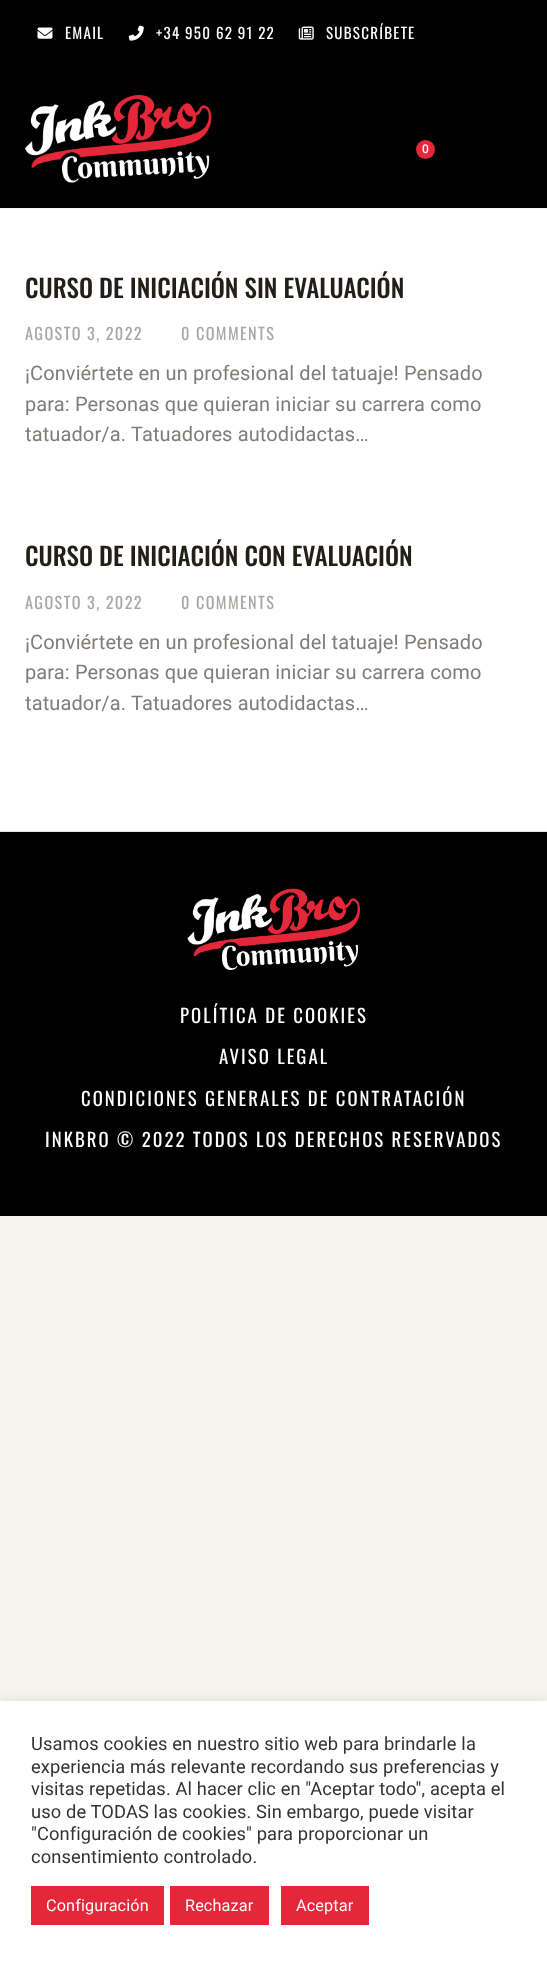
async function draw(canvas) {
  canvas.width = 547;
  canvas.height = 1962;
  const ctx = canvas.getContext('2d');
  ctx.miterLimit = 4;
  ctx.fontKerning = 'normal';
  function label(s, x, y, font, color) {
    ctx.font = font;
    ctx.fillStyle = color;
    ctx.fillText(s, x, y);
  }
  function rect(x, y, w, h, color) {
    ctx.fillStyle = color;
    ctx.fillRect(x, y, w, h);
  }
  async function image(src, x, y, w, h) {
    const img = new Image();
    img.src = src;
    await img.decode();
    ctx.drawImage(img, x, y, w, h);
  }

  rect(0, 0, 547, 1962, '#f7f4f0');
  rect(0, 0, 547, 208, '#000');
  await image('assets/img1.png', 37, 27, 16, 12);
  ctx.letterSpacing = '1.25px';
  label('EMAIL', 65, 39, '15px Oswald', '#fcfcfc');
  await image('assets/img2.png', 128, 25, 16, 16);
  label('+34 950 62 91 22', 156, 39, '15px Oswald', '#fcfcfc');
  await image('assets/img3.png', 298, 26, 16, 14);
  label('SUBSCRÍBETE', 326, 39, '15px Oswald', '#fcfcfc');
  await image('assets/img4.png', 25, 95, 187, 88);
  ctx.fillStyle = '#e5273a';
  ctx.beginPath();
  ctx.arc(425.5, 149.5, 9.5, 0, 2 * Math.PI);
  ctx.fill();
  ctx.letterSpacing = '0px';
  label('0', 422, 153, '500 12px Roboto', '#fcfcfc');
  rect(0, 209, 547, 622, '#fff');
  label('CURSO DE INICIACIÓN SIN EVALUACIÓN', 25, 298, '500 25px Oswald', '#221f18');
  ctx.letterSpacing = '1.4px';
  label('AGOSTO 3, 2022', 25, 340, '16.25px Oswald', '#aaa8a5');
  label('0 COMMENTS', 181, 340, '16.25px Oswald', '#aaa8a5');
  ctx.letterSpacing = '0.12px';
  label('¡Conviértete en un profesional del tatuaje! Pensado', 25, 380, '20px Roboto', '#7f7c79');
  label('para: Personas que quieran iniciar su carrera como', 25, 411, '20px Roboto', '#7f7c79');
  label('tatuador/a.', 25, 441, '20px Roboto', '#7f7c79');
  label('Tatuadores autodidactas…', 131, 441, '20px Roboto', '#7f7c79');
  ctx.letterSpacing = '0px';
  label('CURSO DE INICIACIÓN CON EVALUACIÓN', 25, 566, '500 25px Oswald', '#221f18');
  ctx.letterSpacing = '1.4px';
  label('AGOSTO 3, 2022', 25, 609, '16.25px Oswald', '#aaa8a5');
  label('0 COMMENTS', 181, 609, '16.25px Oswald', '#aaa8a5');
  ctx.letterSpacing = '0.12px';
  label('¡Conviértete en un profesional del tatuaje! Pensado', 25, 649, '20px Roboto', '#7f7c79');
  label('para: Personas que quieran iniciar su carrera como', 25, 679, '20px Roboto', '#7f7c79');
  label('tatuador/a.', 25, 710, '20px Roboto', '#7f7c79');
  label('Tatuadores autodidactas…', 131, 710, '20px Roboto', '#7f7c79');
  rect(0, 832, 547, 384, '#000');
  rect(0, 831, 547, 1, '#e4e4e4');
  await image('assets/img5.png', 187, 888, 173, 82);
  ctx.letterSpacing = '2.05px';
  label('POLÍTICA DE COOKIES', 180, 1023, '18.75px Oswald', '#fcfcfc');
  label('AVISO LEGAL', 219, 1064, '18.75px Oswald', '#fcfcfc');
  label('CONDICIONES GENERALES DE CONTRATACIÓN', 81, 1106, '18.75px Oswald', '#fcfcfc');
  label('INKBRO © 2022 TODOS LOS DERECHOS RESERVADOS', 45, 1147, '18.75px Oswald', '#fcfcfc');
  ctx.fillStyle = '#acabab4d';
  ctx.filter = 'blur(6px)';
  ctx.beginPath();
  ctx.rect(0, 1700, 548, 261);
  ctx.fill();
  ctx.filter = 'none';
  rect(0, 1701, 547, 261, '#fff');
  ctx.letterSpacing = '0.12px';
  label('Usamos cookies en nuestro sitio web para brindarle la', 31, 1750, '18.3px Roboto', '#333');
  label('experiencia más relevante recordando sus preferencias y', 31, 1773, '18.3px Roboto', '#333');
  label('visitas repetidas. Al hacer clic en "Aceptar todo", acepta el', 31, 1795, '18.3px Roboto', '#333');
  label('uso de TODAS las cookies. Sin embargo, puede visitar', 31, 1818, '18.3px Roboto', '#333');
  label('"Configuración de cookies" para proporcionar un', 31, 1840, '18.3px Roboto', '#333');
  label('consentimiento controlado.', 31, 1863, '18.3px Roboto', '#333');
  rect(31, 1886, 133, 39, '#e5273a');
  label('Configuración', 46, 1911, '16.25px Roboto', '#fcfcfc');
  rect(170, 1886, 99, 39, '#e5273a');
  label('Rechazar', 185, 1911, '16.25px Roboto', '#fcfcfc');
  rect(281, 1886, 88, 39, '#e5273a');
  label('Aceptar', 296, 1911, '16.25px Roboto', '#fcfcfc');
}

draw(document.querySelector('canvas'));
